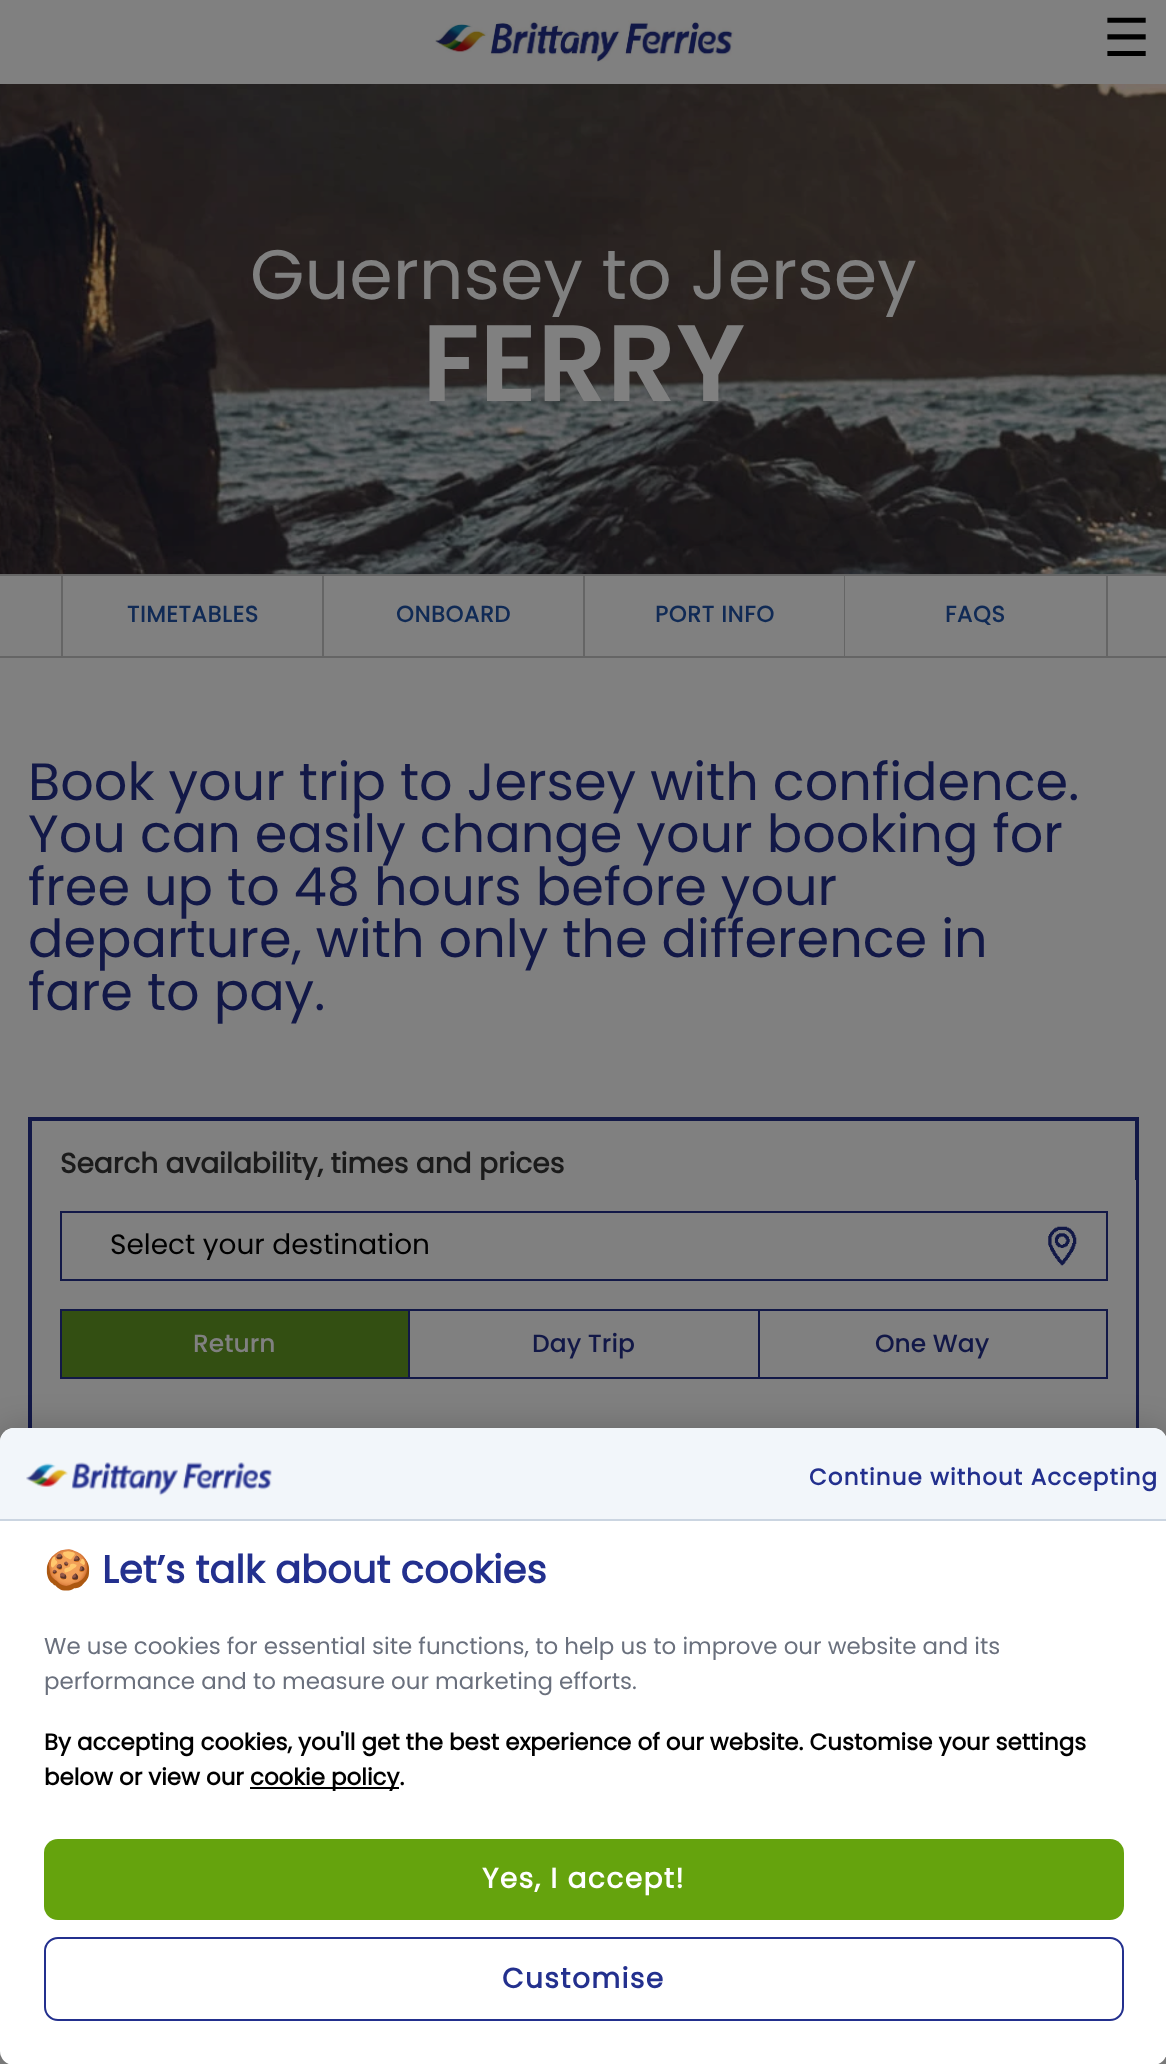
async function draw(canvas) {
  canvas.width = 1166;
  canvas.height = 2064;
  const ctx = canvas.getContext('2d');
  ctx.miterLimit = 4;
  ctx.fontKerning = 'normal';
  function label(s, x, y, font, color) {
    ctx.font = font;
    ctx.fillStyle = color;
    ctx.fillText(s, x, y);
  }
  function rect(x, y, w, h, color) {
    ctx.fillStyle = color;
    ctx.fillRect(x, y, w, h);
  }
  function roundedRect(x, y, w, h, r, color) {
    ctx.fillStyle = color;
    ctx.beginPath();
    ctx.roundRect(x, y, w, h, r);
    ctx.fill();
  }
  async function image(src, x, y, w, h) {
    const img = new Image();
    img.src = src;
    await img.decode();
    ctx.drawImage(img, x, y, w, h);
  }
  let path;

  rect(0, 0, 1166, 2064, '#808080');
  await image('assets/img1.png', 435, 20, 299, 42);
  label('☰', 1103, 56, '52.5px DejaVu Sans', '#000');
  await image('assets/img2.png', 0, 84, 1166, 490);
  label('Guernsey to Jersey', 250, 299, '70px Poppins', '#808080');
  label('FERRY', 422, 401, '600 108.5px Poppins', '#808080');
  rect(0, 574, 1166, 2, '#656565');
  rect(0, 656, 1166, 2, '#656565');
  rect(322, 576, 2, 82, '#656565');
  rect(61, 576, 2, 82, '#656565');
  ctx.letterSpacing = '0.75px';
  label('TIMETABLES', 127, 622, 'bold 22.5px Poppins', '#102a55');
  rect(583, 576, 2, 82, '#656565');
  label('ONBOARD', 396, 622, 'bold 22.5px Poppins', '#102a55');
  rect(844, 576, 1, 82, '#656565');
  label('PORT INFO', 655, 622, 'bold 22.5px Poppins', '#102a55');
  rect(1106, 576, 2, 82, '#656565');
  label('FAQS', 945, 622, 'bold 22.5px Poppins', '#102a55');
  ctx.letterSpacing = '0px';
  label('Book your trip to Jersey with confidence.', 28, 800, '52.5px Poppins', '#121847');
  label('You can easily change your booking for', 28, 852, '52.5px Poppins', '#121847');
  label('free up to 48 hours before your', 28, 905, '52.5px Poppins', '#121847');
  label('departure, with only the difference in', 28, 957, '52.5px Poppins', '#121847');
  label('fare to pay.', 28, 1010, '52.5px Poppins', '#121847');
  ctx.strokeStyle = '#121847';
  ctx.lineWidth = 4;
  ctx.strokeRect(30, 1119, 1107, 522);
  label('Search availability, times and prices', 60, 1173, 'bold 28px Poppins', '#1b1b1b');
  rect(304, 1180, 832, 248, '#808080');
  await image('assets/img3.png', 1048, 1226, 29, 40);
  ctx.lineWidth = 2;
  ctx.strokeRect(61, 1212, 1046, 68);
  ctx.save();
  ctx.beginPath();
  ctx.rect(110, 1230, 966, 30);
  ctx.clip();
  label('Select your destination', 110, 1254, '28px Poppins', '#000');
  ctx.restore();
  rect(62, 1311, 346, 66, '#334f12');
  rect(60, 1309, 698, 2, '#121847');
  rect(60, 1377, 698, 2, '#121847');
  rect(60, 1309, 2, 70, '#121847');
  label('Return', 193, 1352, '500 25px Poppins', '#808080');
  rect(408, 1309, 2, 70, '#121847');
  label('Day Trip', 532, 1352, '500 25px Poppins', '#121847');
  ctx.strokeRect(759, 1310, 348, 68);
  label('One Way', 875, 1352, '500 25px Poppins', '#121847');
  ctx.fillStyle = '#00000033';
  ctx.filter = 'blur(16px)';
  ctx.beginPath();
  ctx.roundRect(0, 1428, 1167, 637, 14);
  ctx.fill();
  ctx.filter = 'none';
  roundedRect(0, 1428, 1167, 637, 14, '#fff');
  ctx.fillStyle = '#f2f6fa';
  path = new Path2D('M14 1428H1153C1160.5 1428 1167 1434.5 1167 1442V1521H0V1442C0 1434.5 6.5 1428 14 1428Z');
  ctx.fill(path);
  ctx.letterSpacing = '1.15px';
  label('Continue without Accepting', 809, 1485, 'bold 22.95px Poppins', '#23308e');
  roundedRect(44, 1839, 1080, 81, 14, '#65a30d');
  ctx.letterSpacing = '1.4px';
  label('Yes, I accept!', 482, 1888, 'bold 28px Poppins', '#fff');
  ctx.beginPath();
  ctx.roundRect(45, 1938, 1078, 82, 13);
  ctx.strokeStyle = '#23308e';
  ctx.stroke();
  label('Customise', 502, 1988, 'bold 28px Poppins', '#23308e');
  rect(0, 1519, 1166, 2, '#cbd5e1');
  await image('assets/img4.png', 26, 1462, 246, 34);
  ctx.letterSpacing = '0px';
  label('🍪', 44, 1583, 'bold 38.5px Noto Color Emoji', '#23308e');
  label('Let’s talk about cookies', 102, 1583, 'bold 38.5px Poppins', '#23308e');
  label('We use cookies for essential site functions, to help us to improve our website and its', 44, 1654, '22.95px Poppins', '#6a707d');
  label('performance and to measure our marketing efforts.', 44, 1689, '22.95px Poppins', '#6a707d');
  label('By accepting cookies, you\'ll get the best experience of our website. Customise your settings', 44, 1750, 'bold 22.95px Poppins', '#000');
  label('below or view our', 44, 1785, 'bold 22.95px Poppins', '#000');
  rect(250, 1787, 149, 2, '#000');
  label('cookie policy.', 250, 1785, 'bold 22.95px Poppins', '#000');
}

draw(document.querySelector('canvas'));
